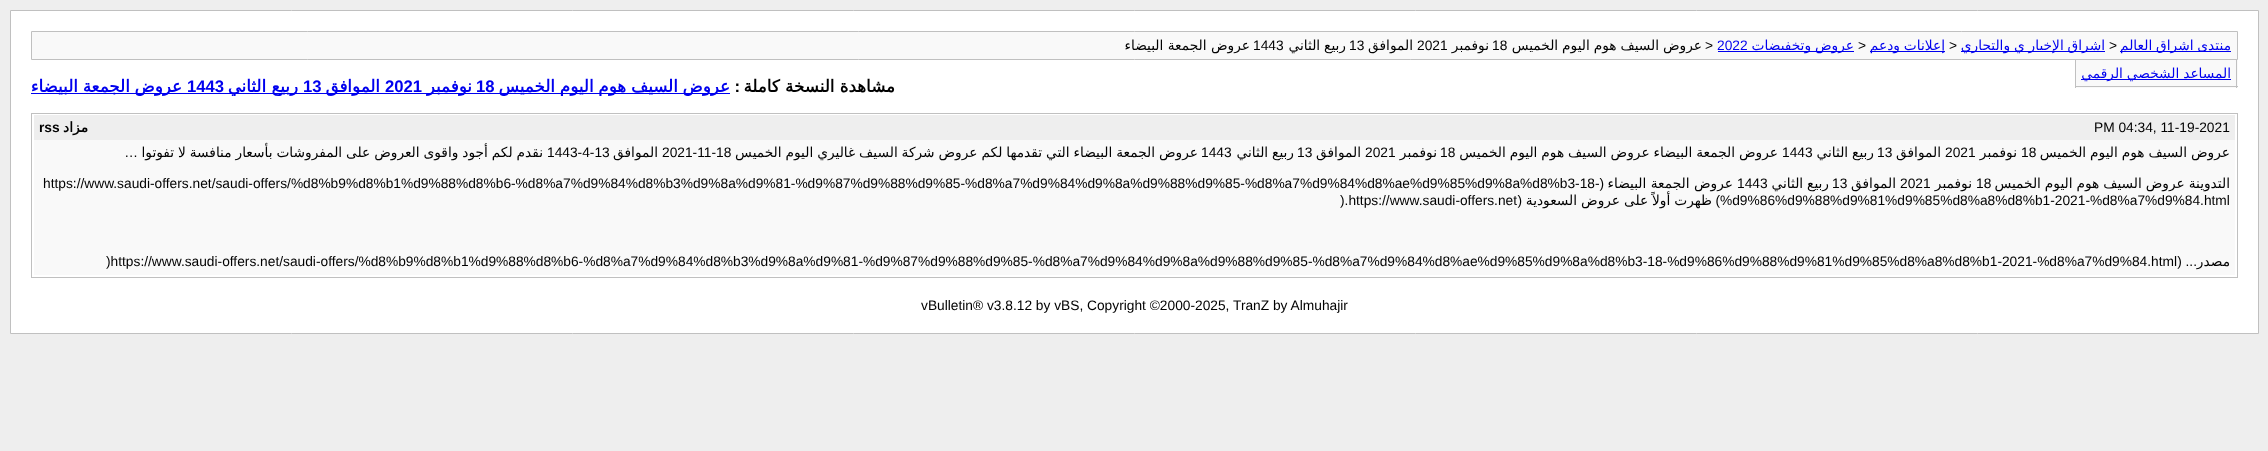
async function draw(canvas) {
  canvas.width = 2268;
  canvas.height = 451;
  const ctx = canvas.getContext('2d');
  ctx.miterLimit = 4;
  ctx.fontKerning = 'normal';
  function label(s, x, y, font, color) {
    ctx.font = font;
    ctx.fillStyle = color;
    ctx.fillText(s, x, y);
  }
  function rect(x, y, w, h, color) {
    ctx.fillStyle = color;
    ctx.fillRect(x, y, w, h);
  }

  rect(0, 0, 2268, 451, '#eee');
  ctx.fillStyle = '#fff';
  ctx.beginPath();
  ctx.rect(10.5, 10.5, 2248, 323);
  ctx.fill();
  ctx.strokeStyle = '#c0c0c0';
  ctx.stroke();
  ctx.fillStyle = '#f9f9f9';
  ctx.beginPath();
  ctx.rect(31.5, 31.5, 2206, 28);
  ctx.fill();
  ctx.stroke();
  ctx.direction = 'rtl';
  label('عروض الجمعة البيضاء', 1250, 50, '13.75px DejaVu Sans', '#000');
  ctx.direction = 'ltr';
  label('1443', 1253, 50, '13.75px Liberation Sans', '#000');
  ctx.wordSpacing = '-0.5px';
  ctx.direction = 'rtl';
  label('ربيع الثاني', 1346, 50, '13.75px DejaVu Sans', '#000');
  ctx.wordSpacing = '0px';
  ctx.direction = 'ltr';
  label('13', 1349, 50, '13.75px Liberation Sans', '#000');
  ctx.direction = 'rtl';
  label('الموافق', 1413, 50, '13.75px DejaVu Sans', '#000');
  ctx.direction = 'ltr';
  label('2021', 1417, 50, '13.75px Liberation Sans', '#000');
  ctx.direction = 'rtl';
  label('نوفمبر', 1489, 50, '13.75px DejaVu Sans', '#000');
  ctx.direction = 'ltr';
  label('18', 1492, 50, '13.75px Liberation Sans', '#000');
  ctx.wordSpacing = '-0.5px';
  ctx.direction = 'rtl';
  label('عروض السيف هوم اليوم الخميس', 1702, 50, '13.75px DejaVu Sans', '#000');
  ctx.wordSpacing = '0px';
  ctx.direction = 'ltr';
  label('>', 1705, 50, '13.75px Liberation Sans', '#000');
  label('2022', 1717, 50, '13.75px Liberation Sans', '#00e');
  rect(1718, 51, 136, 1, '#00e');
  ctx.wordSpacing = '-0.5px';
  ctx.direction = 'rtl';
  label('عروض وتخفيضات', 1854, 50, '13.75px DejaVu Sans', '#00e');
  ctx.wordSpacing = '0px';
  ctx.direction = 'ltr';
  label('>', 1858, 50, '13.75px Liberation Sans', '#000');
  rect(1870, 51, 75, 1, '#00e');
  ctx.wordSpacing = '-0.5px';
  ctx.direction = 'rtl';
  label('إعلانات ودعم', 1945, 50, '13.75px DejaVu Sans', '#00e');
  ctx.wordSpacing = '0px';
  ctx.direction = 'ltr';
  label('>', 1949, 50, '13.75px Liberation Sans', '#000');
  rect(1961, 51, 144, 1, '#00e');
  ctx.wordSpacing = '-0.5px';
  ctx.direction = 'rtl';
  label('اشراق الإخبار ي والتجاري', 2105, 50, '13.75px DejaVu Sans', '#00e');
  ctx.wordSpacing = '0px';
  ctx.direction = 'ltr';
  label('>', 2109, 50, '13.75px Liberation Sans', '#000');
  rect(2120, 51, 111, 1, '#00e');
  ctx.wordSpacing = '-0.5px';
  ctx.direction = 'rtl';
  label('منتدى اشراق العالم', 2231, 50, '13.75px DejaVu Sans', '#00e');
  rect(2076, 60, 162, 28, '#f9f9f9');
  rect(2236, 60, 1, 28, '#c0c0c0');
  rect(2075, 86, 163, 1, '#c0c0c0');
  rect(2075, 60, 1, 28, '#c0c0c0');
  rect(2081, 79, 150, 1, '#00e');
  label('المساعد الشخصي الرقمي', 2231, 78, '13.75px DejaVu Sans', '#00e');
  rect(31, 93, 699, 1, '#00e');
  label('عروض الجمعة البيضاء', 182, 92, 'bold 16.7px DejaVu Sans', '#00e');
  ctx.wordSpacing = '0px';
  ctx.direction = 'ltr';
  label('1443', 187, 92, 'bold 16.7px Liberation Sans', '#00e');
  ctx.direction = 'rtl';
  label('ربيع الثاني', 298, 92, 'bold 16.7px DejaVu Sans', '#00e');
  ctx.direction = 'ltr';
  label('13', 303, 92, 'bold 16.7px Liberation Sans', '#00e');
  ctx.direction = 'rtl';
  label('الموافق', 380, 92, 'bold 16.7px DejaVu Sans', '#00e');
  ctx.direction = 'ltr';
  label('2021', 385, 92, 'bold 16.7px Liberation Sans', '#00e');
  ctx.direction = 'rtl';
  label('نوفمبر', 472, 92, 'bold 16.7px DejaVu Sans', '#00e');
  ctx.direction = 'ltr';
  label('18', 476, 92, 'bold 16.7px Liberation Sans', '#00e');
  ctx.wordSpacing = '-0.5px';
  ctx.direction = 'rtl';
  label('عروض السيف هوم اليوم الخميس', 730, 92, 'bold 16.7px DejaVu Sans', '#00e');
  ctx.wordSpacing = '0px';
  label(':', 740, 92, 'bold 16.7px Liberation Sans', '#000');
  label('مشاهدة النسخة كاملة', 895, 92, 'bold 16.7px DejaVu Sans', '#000');
  ctx.strokeRect(31.5, 113.5, 2206, 164);
  rect(34, 115, 2201, 25, '#eee');
  ctx.direction = 'ltr';
  label('rss', 39, 132, 'bold 13.75px Liberation Sans', '#000');
  ctx.direction = 'rtl';
  label('مزاد', 88, 132, 'bold 13.75px DejaVu Sans', '#000');
  ctx.direction = 'ltr';
  label('PM 04:34, 11-19-2021', 2094, 132, '13.75px Liberation Sans', '#000');
  rect(34, 140, 2201, 135, '#f9f9f9');
  ctx.direction = 'rtl';
  label('…', 138, 157, '13.75px Liberation Sans', '#000');
  ctx.wordSpacing = '-0.5px';
  label('نقدم لكم أجود واقوى العروض على المفروشات بأسعار منافسة لا تفوتوا', 543, 157, '13.75px DejaVu Sans', '#000');
  ctx.wordSpacing = '0px';
  ctx.direction = 'ltr';
  label('1443-4-13', 547, 157, '13.75px Liberation Sans', '#000');
  ctx.direction = 'rtl';
  label('الموافق', 658, 157, '13.75px DejaVu Sans', '#000');
  ctx.direction = 'ltr';
  label('2021-11-18', 662, 157, '13.75px Liberation Sans', '#000');
  ctx.wordSpacing = '-0.5px';
  ctx.direction = 'rtl';
  label('عروض الجمعة البيضاء التي تقدمها لكم عروض شركة السيف غاليري اليوم الخميس', 1198, 157, '13.75px DejaVu Sans', '#000');
  ctx.wordSpacing = '0px';
  ctx.direction = 'ltr';
  label('1443', 1201, 157, '13.75px Liberation Sans', '#000');
  ctx.wordSpacing = '-0.5px';
  ctx.direction = 'rtl';
  label('ربيع الثاني', 1294, 157, '13.75px DejaVu Sans', '#000');
  ctx.wordSpacing = '0px';
  ctx.direction = 'ltr';
  label('13', 1297, 157, '13.75px Liberation Sans', '#000');
  ctx.direction = 'rtl';
  label('الموافق', 1361, 157, '13.75px DejaVu Sans', '#000');
  ctx.direction = 'ltr';
  label('2021', 1365, 157, '13.75px Liberation Sans', '#000');
  ctx.direction = 'rtl';
  label('نوفمبر', 1437, 157, '13.75px DejaVu Sans', '#000');
  ctx.direction = 'ltr';
  label('18', 1440, 157, '13.75px Liberation Sans', '#000');
  ctx.wordSpacing = '-0.5px';
  ctx.direction = 'rtl';
  label('عروض الجمعة البيضاء عروض السيف هوم اليوم الخميس', 1778, 157, '13.75px DejaVu Sans', '#000');
  ctx.wordSpacing = '0px';
  ctx.direction = 'ltr';
  label('1443', 1782, 157, '13.75px Liberation Sans', '#000');
  ctx.wordSpacing = '-0.5px';
  ctx.direction = 'rtl';
  label('ربيع الثاني', 1874, 157, '13.75px DejaVu Sans', '#000');
  ctx.wordSpacing = '0px';
  ctx.direction = 'ltr';
  label('13', 1877, 157, '13.75px Liberation Sans', '#000');
  ctx.direction = 'rtl';
  label('الموافق', 1941, 157, '13.75px DejaVu Sans', '#000');
  ctx.direction = 'ltr';
  label('2021', 1945, 157, '13.75px Liberation Sans', '#000');
  ctx.direction = 'rtl';
  label('نوفمبر', 2017, 157, '13.75px DejaVu Sans', '#000');
  ctx.direction = 'ltr';
  label('18', 2021, 157, '13.75px Liberation Sans', '#000');
  ctx.wordSpacing = '-0.5px';
  ctx.direction = 'rtl';
  label('عروض السيف هوم اليوم الخميس', 2230, 157, '13.75px DejaVu Sans', '#000');
  ctx.wordSpacing = '0px';
  ctx.direction = 'ltr';
  label('https://www.saudi-offers.net/saudi-offers/%d8%b9%d8%b1%d9%88%d8%b6-%d8%a7%d9%84%d8%b3%d9%8a%d9%81-%d9%87%d9%88%d9%85-%d8%a7%d9%84%d9%8a%d9%88%d9%85-%d8%a7%d9%84%d8%ae%d9%85%d9%8a%d8%b3-18-', 43, 188, '13.75px Liberation Sans', '#000');
  ctx.direction = 'rtl';
  label('(', 1604, 188, '13.75px Liberation Sans', '#000');
  label('عروض الجمعة البيضاء', 1733, 188, '13.75px DejaVu Sans', '#000');
  ctx.direction = 'ltr';
  label('1443', 1737, 188, '13.75px Liberation Sans', '#000');
  ctx.wordSpacing = '-0.5px';
  ctx.direction = 'rtl';
  label('ربيع الثاني', 1829, 188, '13.75px DejaVu Sans', '#000');
  ctx.wordSpacing = '0px';
  ctx.direction = 'ltr';
  label('13', 1832, 188, '13.75px Liberation Sans', '#000');
  ctx.direction = 'rtl';
  label('الموافق', 1896, 188, '13.75px DejaVu Sans', '#000');
  ctx.direction = 'ltr';
  label('2021', 1900, 188, '13.75px Liberation Sans', '#000');
  ctx.direction = 'rtl';
  label('نوفمبر', 1972, 188, '13.75px DejaVu Sans', '#000');
  ctx.direction = 'ltr';
  label('18', 1976, 188, '13.75px Liberation Sans', '#000');
  ctx.wordSpacing = '-0.5px';
  ctx.direction = 'rtl';
  label('التدوينة عروض السيف هوم اليوم الخميس', 2230, 188, '13.75px DejaVu Sans', '#000');
  ctx.wordSpacing = '0px';
  ctx.direction = 'ltr';
  label(').https://www.saudi-offers.net', 1340, 205, '13.75px Liberation Sans', '#000');
  ctx.direction = 'rtl';
  label('(', 1522, 205, '13.75px Liberation Sans', '#000');
  ctx.wordSpacing = '-0.5px';
  label('ظهرت أولاً على عروض السعودية', 1712, 205, '13.75px DejaVu Sans', '#000');
  ctx.wordSpacing = '0px';
  label(')', 1720, 205, '13.75px Liberation Sans', '#000');
  ctx.direction = 'ltr';
  label('%d9%86%d9%88%d9%81%d9%85%d8%a8%d8%b1-2021-%d8%a7%d9%84.html', 1720, 205, '13.75px Liberation Sans', '#000');
  label(')https://www.saudi-offers.net/saudi-offers/%d8%b9%d8%b1%d9%88%d8%b6-%d8%a7%d9%84%d8%b3%d9%8a%d9%81-%d9%87%d9%88%d9%85-%d8%a7%d9%84%d9%8a%d9%88%d9%85-%d8%a7%d9%84%d8%ae%d9%85%d9%8a%d8%b3-18-%d9%86%d9%88%d9%81%d9%85%d8%a8%d8%b1-2021-%d8%a7%d9%84.html', 106, 266, '13.75px Liberation Sans', '#000');
  ctx.direction = 'rtl';
  label('... (', 2197, 266, '13.75px Liberation Sans', '#000');
  label('مصدر', 2230, 266, '13.75px DejaVu Sans', '#000');
  ctx.direction = 'ltr';
  label('vBulletin® v3.8.12 by vBS, Copyright ©2000-2025, TranZ by Almuhajir', 921, 310, '13.75px Liberation Sans', '#000');
}

draw(document.querySelector('canvas'));
